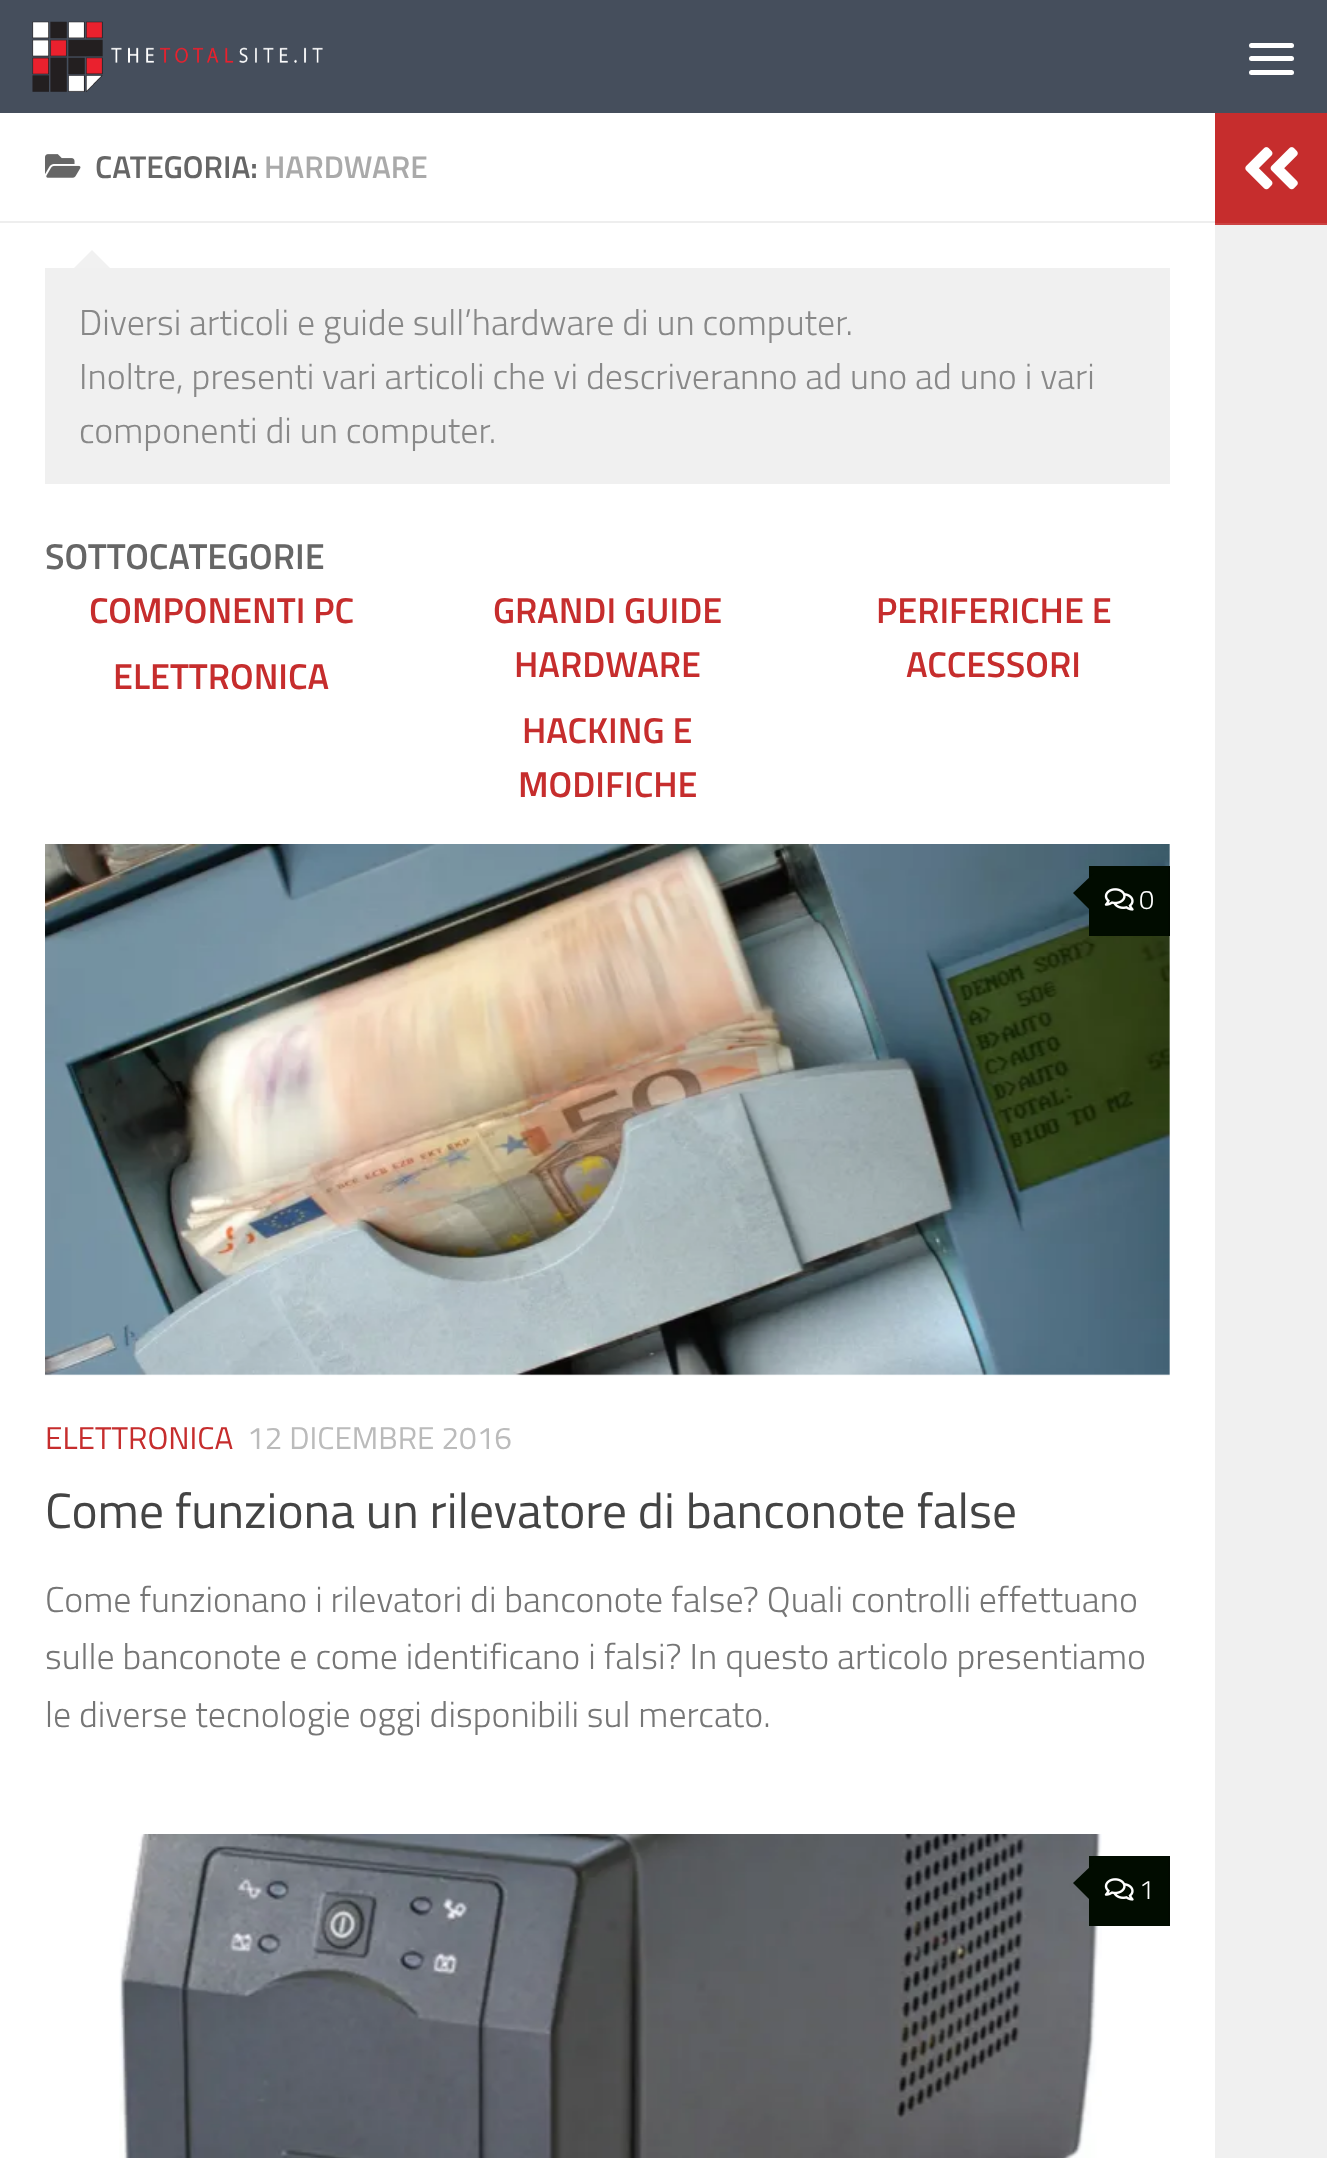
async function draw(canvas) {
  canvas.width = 1327;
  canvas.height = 2158;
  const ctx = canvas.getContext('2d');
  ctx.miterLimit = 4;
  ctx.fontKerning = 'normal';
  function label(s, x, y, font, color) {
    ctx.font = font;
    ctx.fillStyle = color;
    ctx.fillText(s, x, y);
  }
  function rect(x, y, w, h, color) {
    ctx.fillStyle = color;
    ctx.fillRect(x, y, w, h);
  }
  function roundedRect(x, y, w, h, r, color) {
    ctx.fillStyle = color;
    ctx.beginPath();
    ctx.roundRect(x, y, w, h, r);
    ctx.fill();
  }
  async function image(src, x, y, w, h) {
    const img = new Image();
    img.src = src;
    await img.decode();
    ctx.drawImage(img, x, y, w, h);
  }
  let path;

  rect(0, 0, 1327, 2158, '#fff');
  rect(0, 0, 1327, 113, '#454e5c');
  await image('assets/img1.png', 32, 21, 291, 71);
  roundedRect(1249, 43, 45, 5, 2.5, '#fff');
  roundedRect(1249, 56, 45, 5, 2.5, '#fff');
  roundedRect(1249, 70, 45, 5, 2.5, '#fff');
  rect(0, 221, 1215, 2, '#eee');
  await image('assets/img2.png', 45, 154, 36, 24);
  label('CATEGORIA:', 95, 178, '600 31.5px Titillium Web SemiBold', '#666');
  label('HARDWARE', 264, 178, '600 31.5px Titillium Web SemiBold', '#aaa');
  rect(45, 268, 1125, 216, '#f0f0f0');
  ctx.fillStyle = '#f1f1f1';
  path = new Path2D('M110 268H74L92 250Z');
  ctx.fill(path);
  label('Diversi articoli e guide sull’hardware di un computer.', 79, 335, '300 36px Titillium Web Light', '#888');
  label('Inoltre, presenti vari articoli che vi descriveranno ad uno ad uno i vari', 79, 389, '300 36px Titillium Web Light', '#888');
  label('componenti di un computer.', 79, 443, '300 36px Titillium Web Light', '#888');
  label('SOTTOCATEGORIE', 45, 569, '600 36px Titillium Web SemiBold', '#666');
  label('COMPONENTI PC', 89, 623, '600 36px Titillium Web SemiBold', '#c62d2d');
  label('GRANDI GUIDE', 493, 623, '600 36px Titillium Web SemiBold', '#c62d2d');
  label('HARDWARE', 514, 677, '600 36px Titillium Web SemiBold', '#c62d2d');
  label('PERIFERICHE E', 876, 623, '600 36px Titillium Web SemiBold', '#c62d2d');
  label('ACCESSORI', 906, 677, '600 36px Titillium Web SemiBold', '#c62d2d');
  label('ELETTRONICA', 113, 689, '600 36px Titillium Web SemiBold', '#c62d2d');
  label('HACKING E', 522, 743, '600 36px Titillium Web SemiBold', '#c62d2d');
  label('MODIFICHE', 518, 797, '600 36px Titillium Web SemiBold', '#c62d2d');
  await image('assets/img3.png', 45, 844, 1125, 532);
  rect(1089, 866, 79, 70, '#010c00');
  rect(1168, 866, 2, 70, '#010a00');
  ctx.fillStyle = '#010c00';
  path = new Path2D('M1094 873V914L1073 893Z');
  ctx.fill(path);
  await image('assets/img4.png', 1104, 888, 30, 23);
  label('0', 1139, 909, '300 27px Titillium Web Light', '#fff');
  label('ELETTRONICA', 45, 1449, '31.5px Titillium Web', '#c62d2d');
  label('12 DICEMBRE 2016', 247, 1449, '31.5px Titillium Web', '#bbb');
  label('Come funziona un rilevatore di banconote false', 45, 1528, '49.5px Titillium Web', '#444');
  label('Come funzionano i rilevatori di banconote false? Quali controlli effettuano', 45, 1612, '300 36px Titillium Web Light', '#767676');
  label('sulle banconote e come identificano i falsi? In questo articolo presentiamo', 45, 1669, '300 36px Titillium Web Light', '#767676');
  label('le diverse tecnologie oggi disponibili sul mercato.', 45, 1727, '300 36px Titillium Web Light', '#767676');
  await image('assets/img5.png', 119, 1834, 983, 324);
  rect(1089, 1856, 79, 70, '#010c00');
  rect(1168, 1856, 2, 70, '#010a00');
  ctx.fillStyle = '#010c00';
  path = new Path2D('M1094 1863V1904L1073 1883Z');
  ctx.fill(path);
  await image('assets/img4.png', 1104, 1878, 30, 23);
  label('1', 1139, 1899, '300 27px Titillium Web Light', '#fff');
  rect(1215, 113, 112, 110, '#c62d2d');
  rect(1215, 223, 112, 2, '#cc4242');
  await image('assets/img6.png', 1245, 147, 53, 43);
  rect(1215, 225, 112, 1933, '#f0f0f0');
}

draw(document.querySelector('canvas'));
